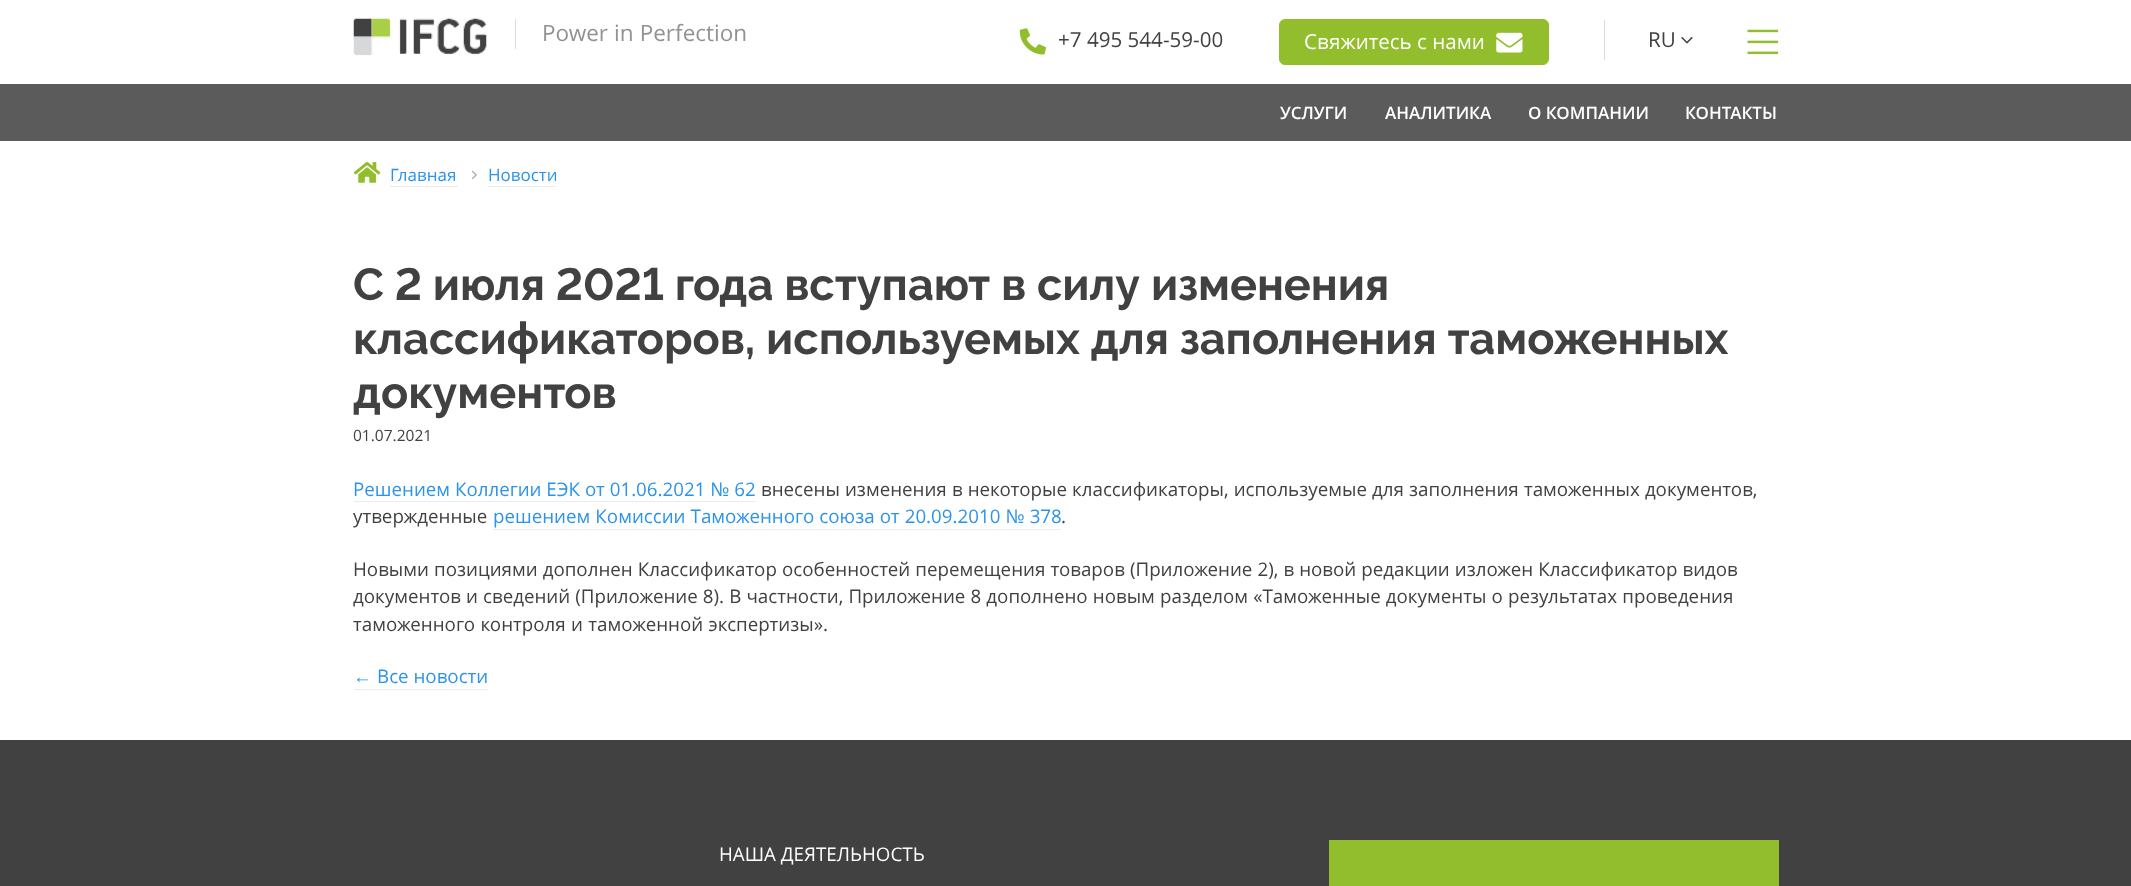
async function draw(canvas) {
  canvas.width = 2131;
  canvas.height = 886;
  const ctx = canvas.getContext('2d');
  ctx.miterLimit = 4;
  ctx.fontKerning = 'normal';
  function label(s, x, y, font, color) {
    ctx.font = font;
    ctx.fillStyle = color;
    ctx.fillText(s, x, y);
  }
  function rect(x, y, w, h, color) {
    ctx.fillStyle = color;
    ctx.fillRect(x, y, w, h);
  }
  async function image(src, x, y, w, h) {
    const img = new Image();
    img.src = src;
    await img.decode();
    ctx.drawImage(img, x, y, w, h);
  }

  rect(0, 0, 2131, 886, '#fff');
  await image('assets/img1.png', 353, 18, 134, 38);
  rect(515, 19, 1, 30, '#ddd');
  ctx.wordSpacing = '0.25px';
  label('Power in Perfection', 542, 41, '22.5px Open Sans', '#929292');
  await image('assets/img2.png', 1019, 28, 27, 27);
  ctx.wordSpacing = '0px';
  label('+7 495 544-59-00', 1058, 47, '20.6px Open Sans', '#424142');
  ctx.fillStyle = '#92bd2c';
  ctx.beginPath();
  ctx.roundRect(1279.5, 19.5, 269, 45, 5.5);
  ctx.fill();
  ctx.strokeStyle = '#92bd2c';
  ctx.stroke();
  label('Свяжитесь с нами', 1304, 49, '20.6px Open Sans', '#fff');
  await image('assets/img3.png', 1496, 32, 27, 21);
  rect(1604, 20, 1, 40, '#d5dbe2');
  label('RU', 1648, 47, '20.6px Open Sans', '#424142');
  await image('assets/img4.png', 1681, 37, 12, 7);
  await image('assets/img5.png', 1747, 29, 32, 26);
  rect(0, 84, 2131, 57, '#5b5b5b');
  label('УСЛУГИ', 1280, 119, '600 17px Open Sans', '#fff');
  label('АНАЛИТИКА', 1385, 119, '600 17px Open Sans', '#fff');
  label('О КОМПАНИИ', 1528, 119, '600 17px Open Sans', '#fff');
  label('КОНТАКТЫ', 1685, 119, '600 17px Open Sans', '#fff');
  await image('assets/img6.png', 353, 162, 28, 21);
  label('Главная', 390, 181, '17px Open Sans', '#2b93ec');
  rect(390, 186, 68, 1, '#ececec');
  await image('assets/img7.png', 472, 170, 5, 10);
  label('Новости', 488, 181, '17px Open Sans', '#2b93ec');
  rect(488, 186, 68, 1, '#ececec');
  label('С 2 июля 2021 года вступают в силу изменения', 353, 300, 'bold 45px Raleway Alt', '#424142');
  label('классификаторов, используемых для заполнения таможенных', 353, 354, 'bold 45px Raleway', '#424142');
  label('документов', 353, 408, 'bold 45px Raleway', '#424142');
  label('01.07.2021', 353, 441, '15.5px Open Sans', '#424142');
  label('Решением Коллегии ЕЭК от 01.06.2021 № 62', 353, 496, '18.75px Open Sans', '#2b93ec');
  rect(354, 501, 402, 1, '#ececec');
  ctx.wordSpacing = '0.25px';
  label('внесены изменения в некоторые классификаторы, используемые для заполнения таможенных документов,', 761, 496, '18.75px Open Sans', '#424142');
  ctx.wordSpacing = '0px';
  label('утвержденные', 353, 523, '18.75px Open Sans', '#424142');
  ctx.wordSpacing = '0.2px';
  label('решением Комиссии Таможенного союза от 20.09.2010 № 378', 493, 523, '18.75px Open Sans', '#2b93ec');
  rect(493, 529, 568, 1, '#ececec');
  ctx.wordSpacing = '0px';
  label('.', 1061, 523, '18.75px Open Sans', '#424142');
  ctx.wordSpacing = '0.2px';
  label('Новыми позициями дополнен Классификатор особенностей перемещения товаров (Приложение 2), в новой редакции изложен Классификатор видов', 353, 576, '18.75px Open Sans', '#424142');
  ctx.wordSpacing = '0.25px';
  label('документов и сведений (Приложение 8). В частности, Приложение 8 дополнено новым разделом «Таможенные документы о результатах проведения', 353, 603, '18.75px Open Sans', '#424142');
  ctx.wordSpacing = '0.5px';
  label('таможенного контроля и таможенной экспертизы».', 353, 631, '18.75px Open Sans', '#424142');
  ctx.wordSpacing = '0px';
  label('←', 353, 683, '18.75px Liberation Sans', '#2b93ec');
  rect(354, 689, 134, 1, '#ececec');
  label('Все новости', 377, 683, '18.75px Open Sans', '#2b93ec');
  rect(0, 740, 2131, 146, '#414141');
  label('НАША ДЕЯТЕЛЬНОСТЬ', 719, 861, '18.75px Open Sans', '#fff');
  rect(1329, 840, 450, 46, '#92bd2c');
}

draw(document.querySelector('canvas'));
